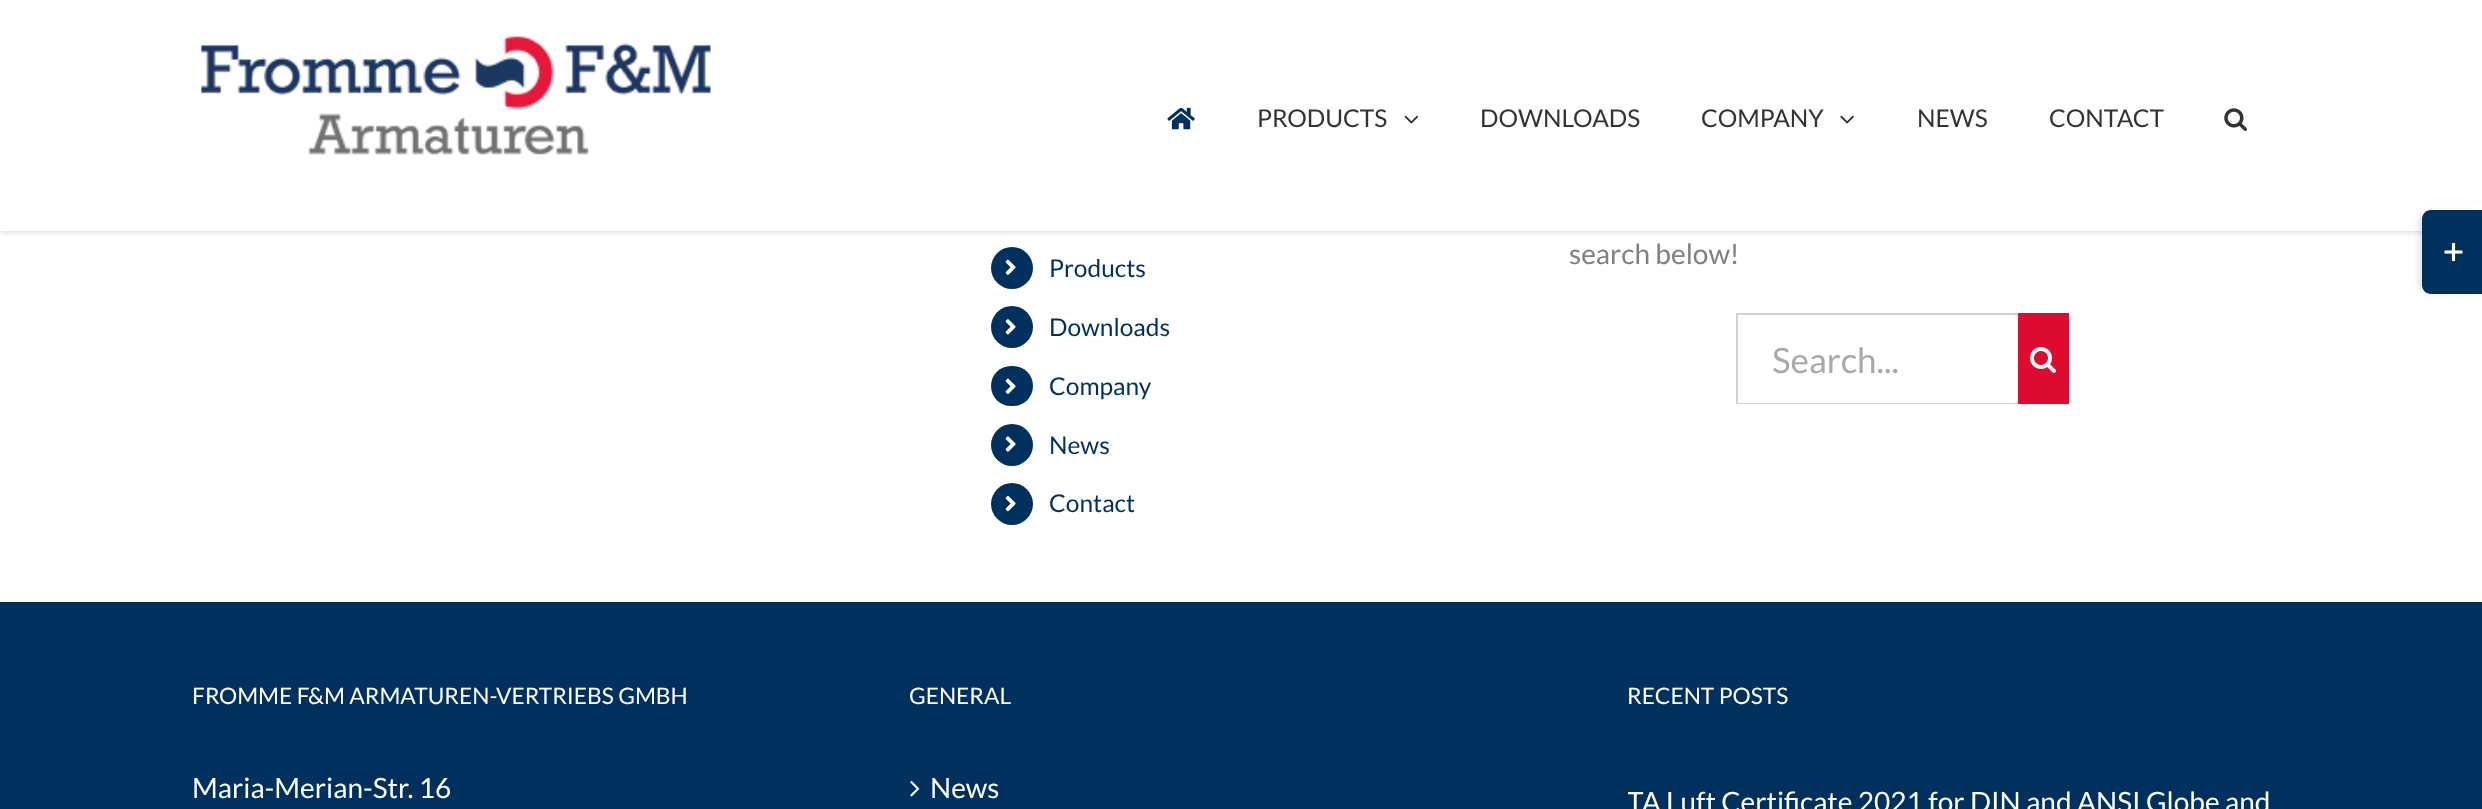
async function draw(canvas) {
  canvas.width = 2482;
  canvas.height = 809;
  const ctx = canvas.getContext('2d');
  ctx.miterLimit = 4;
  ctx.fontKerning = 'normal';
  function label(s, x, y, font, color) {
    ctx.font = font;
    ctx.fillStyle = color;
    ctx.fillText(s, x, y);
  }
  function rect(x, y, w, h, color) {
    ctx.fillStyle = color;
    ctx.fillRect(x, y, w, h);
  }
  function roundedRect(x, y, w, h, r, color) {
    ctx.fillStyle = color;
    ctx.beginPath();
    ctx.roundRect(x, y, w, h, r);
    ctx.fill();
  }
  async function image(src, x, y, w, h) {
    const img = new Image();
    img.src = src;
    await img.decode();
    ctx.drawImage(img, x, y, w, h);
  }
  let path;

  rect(0, 0, 2482, 809, '#fff');
  ctx.fillStyle = '#0000001f';
  ctx.filter = 'blur(2.5px)';
  ctx.beginPath();
  ctx.rect(0, 2, 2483, 231);
  ctx.fill();
  ctx.filter = 'none';
  rect(0, 0, 2482, 231, '#fff');
  await image('assets/img1.png', 200, 36, 511, 119);
  await image('assets/img2.png', 1167, 107, 28, 23);
  label('PRODUCTS', 1257, 127, '24.5px Lato', '#333');
  await image('assets/img3.png', 1404, 115, 15, 9);
  label('DOWNLOADS', 1480, 127, '24.5px Lato', '#333');
  label('COMPANY', 1701, 127, '24.5px Lato', '#333');
  await image('assets/img4.png', 1840, 115, 14, 9);
  label('NEWS', 1917, 127, '24.5px Lato', '#333');
  label('CONTACT', 2049, 127, '24.5px Lato', '#333');
  await image('assets/img5.png', 2224, 108, 23, 23);
  ctx.fillStyle = '#00305d';
  ctx.beginPath();
  ctx.arc(1012, 268, 21, 0, 2 * Math.PI);
  ctx.fill();
  await image('assets/img6.png', 1005, 259, 11, 16);
  label('Products', 1049, 277, '24.5px Lato', '#00305d');
  ctx.beginPath();
  ctx.arc(1012, 327, 21, 0, 2 * Math.PI);
  ctx.fill();
  await image('assets/img7.png', 1005, 319, 11, 16);
  label('Downloads', 1049, 336, '24.5px Lato', '#00305d');
  roundedRect(991, 366, 42, 40, 20, '#00305d');
  await image('assets/img6.png', 1005, 378, 11, 16);
  label('Company', 1049, 395, '24.5px Lato', '#00305d');
  ctx.beginPath();
  ctx.arc(1012, 445, 21, 0, 2 * Math.PI);
  ctx.fill();
  await image('assets/img8.png', 1005, 436, 11, 16);
  label('News', 1049, 454, '24.5px Lato', '#00305d');
  ctx.beginPath();
  ctx.arc(1012, 504, 21, 0, 2 * Math.PI);
  ctx.fill();
  await image('assets/img9.png', 1005, 495, 11, 17);
  label('Contact', 1049, 512, '24.5px Lato', '#00305d');
  label('search below!', 1569, 264, '28px Lato', '#808080');
  rect(1736, 313, 282, 2, '#d2d2d2');
  rect(1736, 403, 282, 1, '#d2d2d2');
  rect(1736, 313, 2, 91, '#d2d2d2');
  label('Search...', 1772, 373, '35px Lato', '#aaa9a9');
  rect(2018, 313, 51, 91, '#dd0b2f');
  await image('assets/img10.png', 2030, 347, 26, 26);
  ctx.fillStyle = '#00000024';
  ctx.filter = 'blur(4.5px)';
  ctx.beginPath();
  ctx.roundRect(2420, 214, 55, 77, 5);
  ctx.fill();
  ctx.filter = 'none';
  ctx.fillStyle = '#00305d';
  path = new Path2D('M2431 210H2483V294H2431C2426 294 2422 290 2422 285V219C2422 214 2426 210 2431 210Z');
  ctx.fill(path);
  await image('assets/img11.png', 2444, 242, 19, 20);
  rect(0, 602, 2482, 207, '#00305d');
  label('FROMME F&M ARMATUREN-VERTRIEBS GMBH', 192, 704, '22.75px Lato', '#fff');
  label('Maria-Merian-Str. 16', 192, 798, '28px Lato', '#fff');
  label('GENERAL', 909, 704, '22.75px Lato', '#fff');
  await image('assets/img12.png', 910, 781, 10, 16);
  label('News', 930, 798, '28px Lato', '#fff');
  label('RECENT POSTS', 1627, 704, '22.75px Lato', '#fff');
  ctx.save();
  ctx.beginPath();
  ctx.rect(1628, 777, 665, 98);
  ctx.clip();
  label('TA Luft Certificate 2021 for DIN and ANSI Globe and', 1627, 812, '28px Lato', '#fff');
  ctx.restore();
}

draw(document.querySelector('canvas'));
